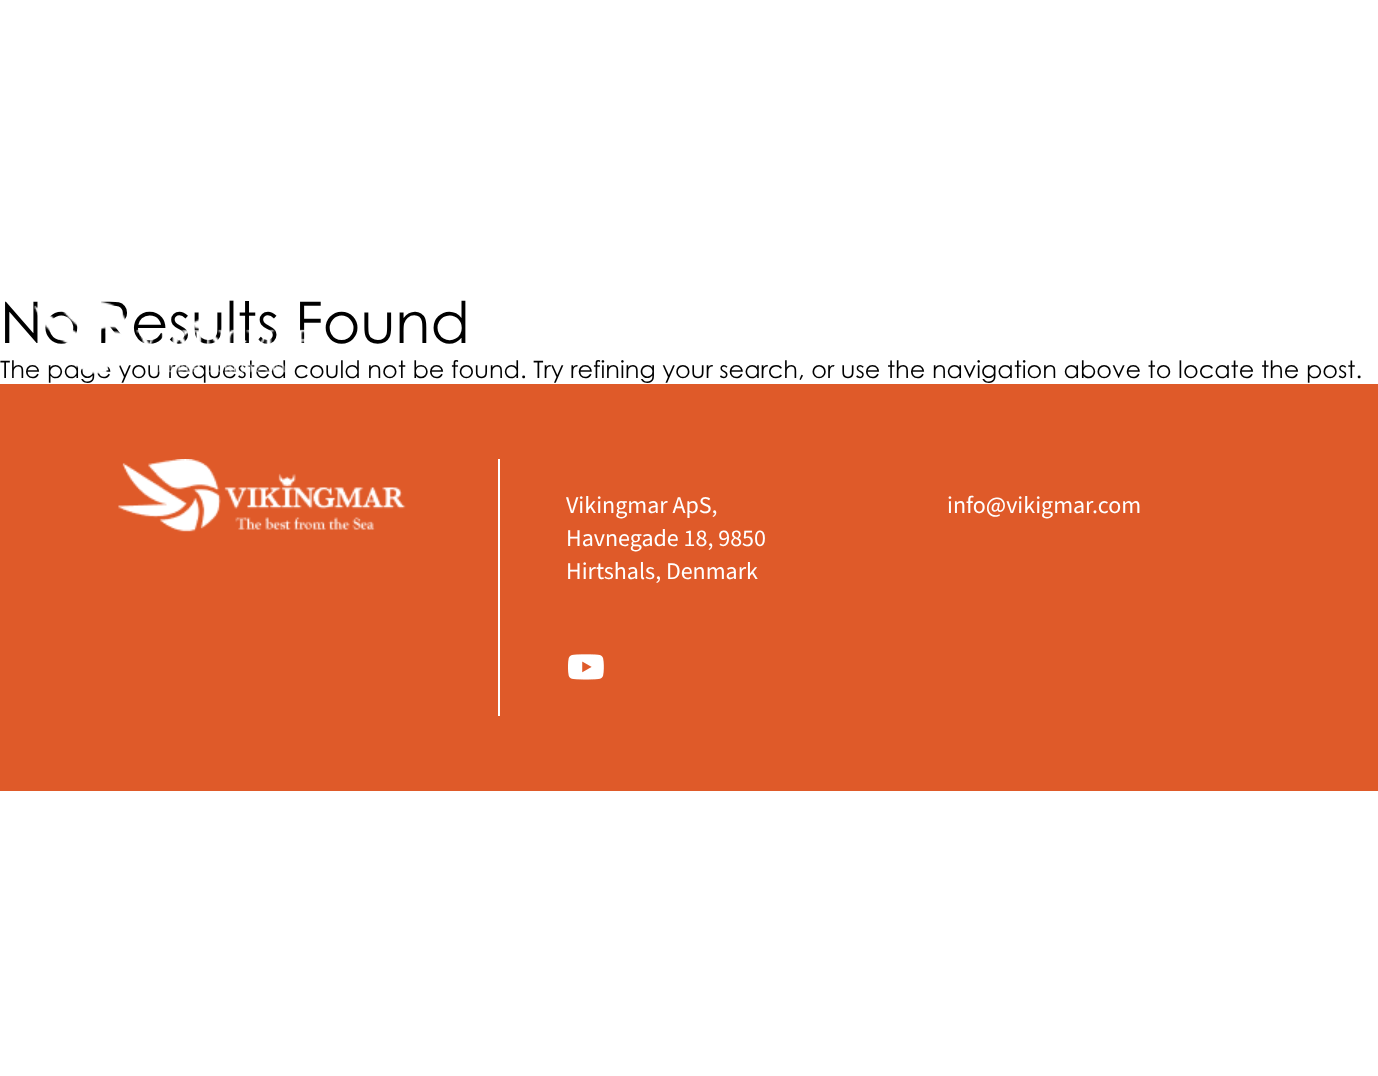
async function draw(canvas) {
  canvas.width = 1378;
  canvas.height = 1076;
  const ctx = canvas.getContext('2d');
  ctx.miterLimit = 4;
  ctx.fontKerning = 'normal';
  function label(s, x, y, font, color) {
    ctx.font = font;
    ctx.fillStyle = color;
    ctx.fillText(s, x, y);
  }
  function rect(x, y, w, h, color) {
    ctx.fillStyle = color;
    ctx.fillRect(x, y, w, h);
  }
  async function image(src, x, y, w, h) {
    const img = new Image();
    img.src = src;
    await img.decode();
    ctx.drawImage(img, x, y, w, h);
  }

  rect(0, 0, 1378, 1076, '#fff');
  label('No Results Found', 0, 343, '57.5px Century Gothic', '#000');
  label('The page you requested could not be found. Try refining your search, or use the navigation above to locate the post.', 0, 378, '24px Century Gothic', '#000');
  await image('assets/img1.png', 34, 301, 271, 73);
  rect(0, 384, 1378, 407, '#df5a29');
  rect(498, 459, 2, 257, '#fff');
  await image('assets/img2.png', 118, 459, 288, 73);
  label('Vikingmar ApS,', 566, 513, '24px "Source Sans 3"', '#fff');
  label('Havnegade 18, 9850', 566, 546, '24px "Source Sans 3"', '#fff');
  label('Hirtshals, Denmark', 566, 579, '24px "Source Sans 3"', '#fff');
  await image('assets/img3.png', 568, 654, 36, 26);
  label('info@vikigmar.com', 947, 513, '24px "Source Sans 3"', '#fff');
}

draw(document.querySelector('canvas'));
